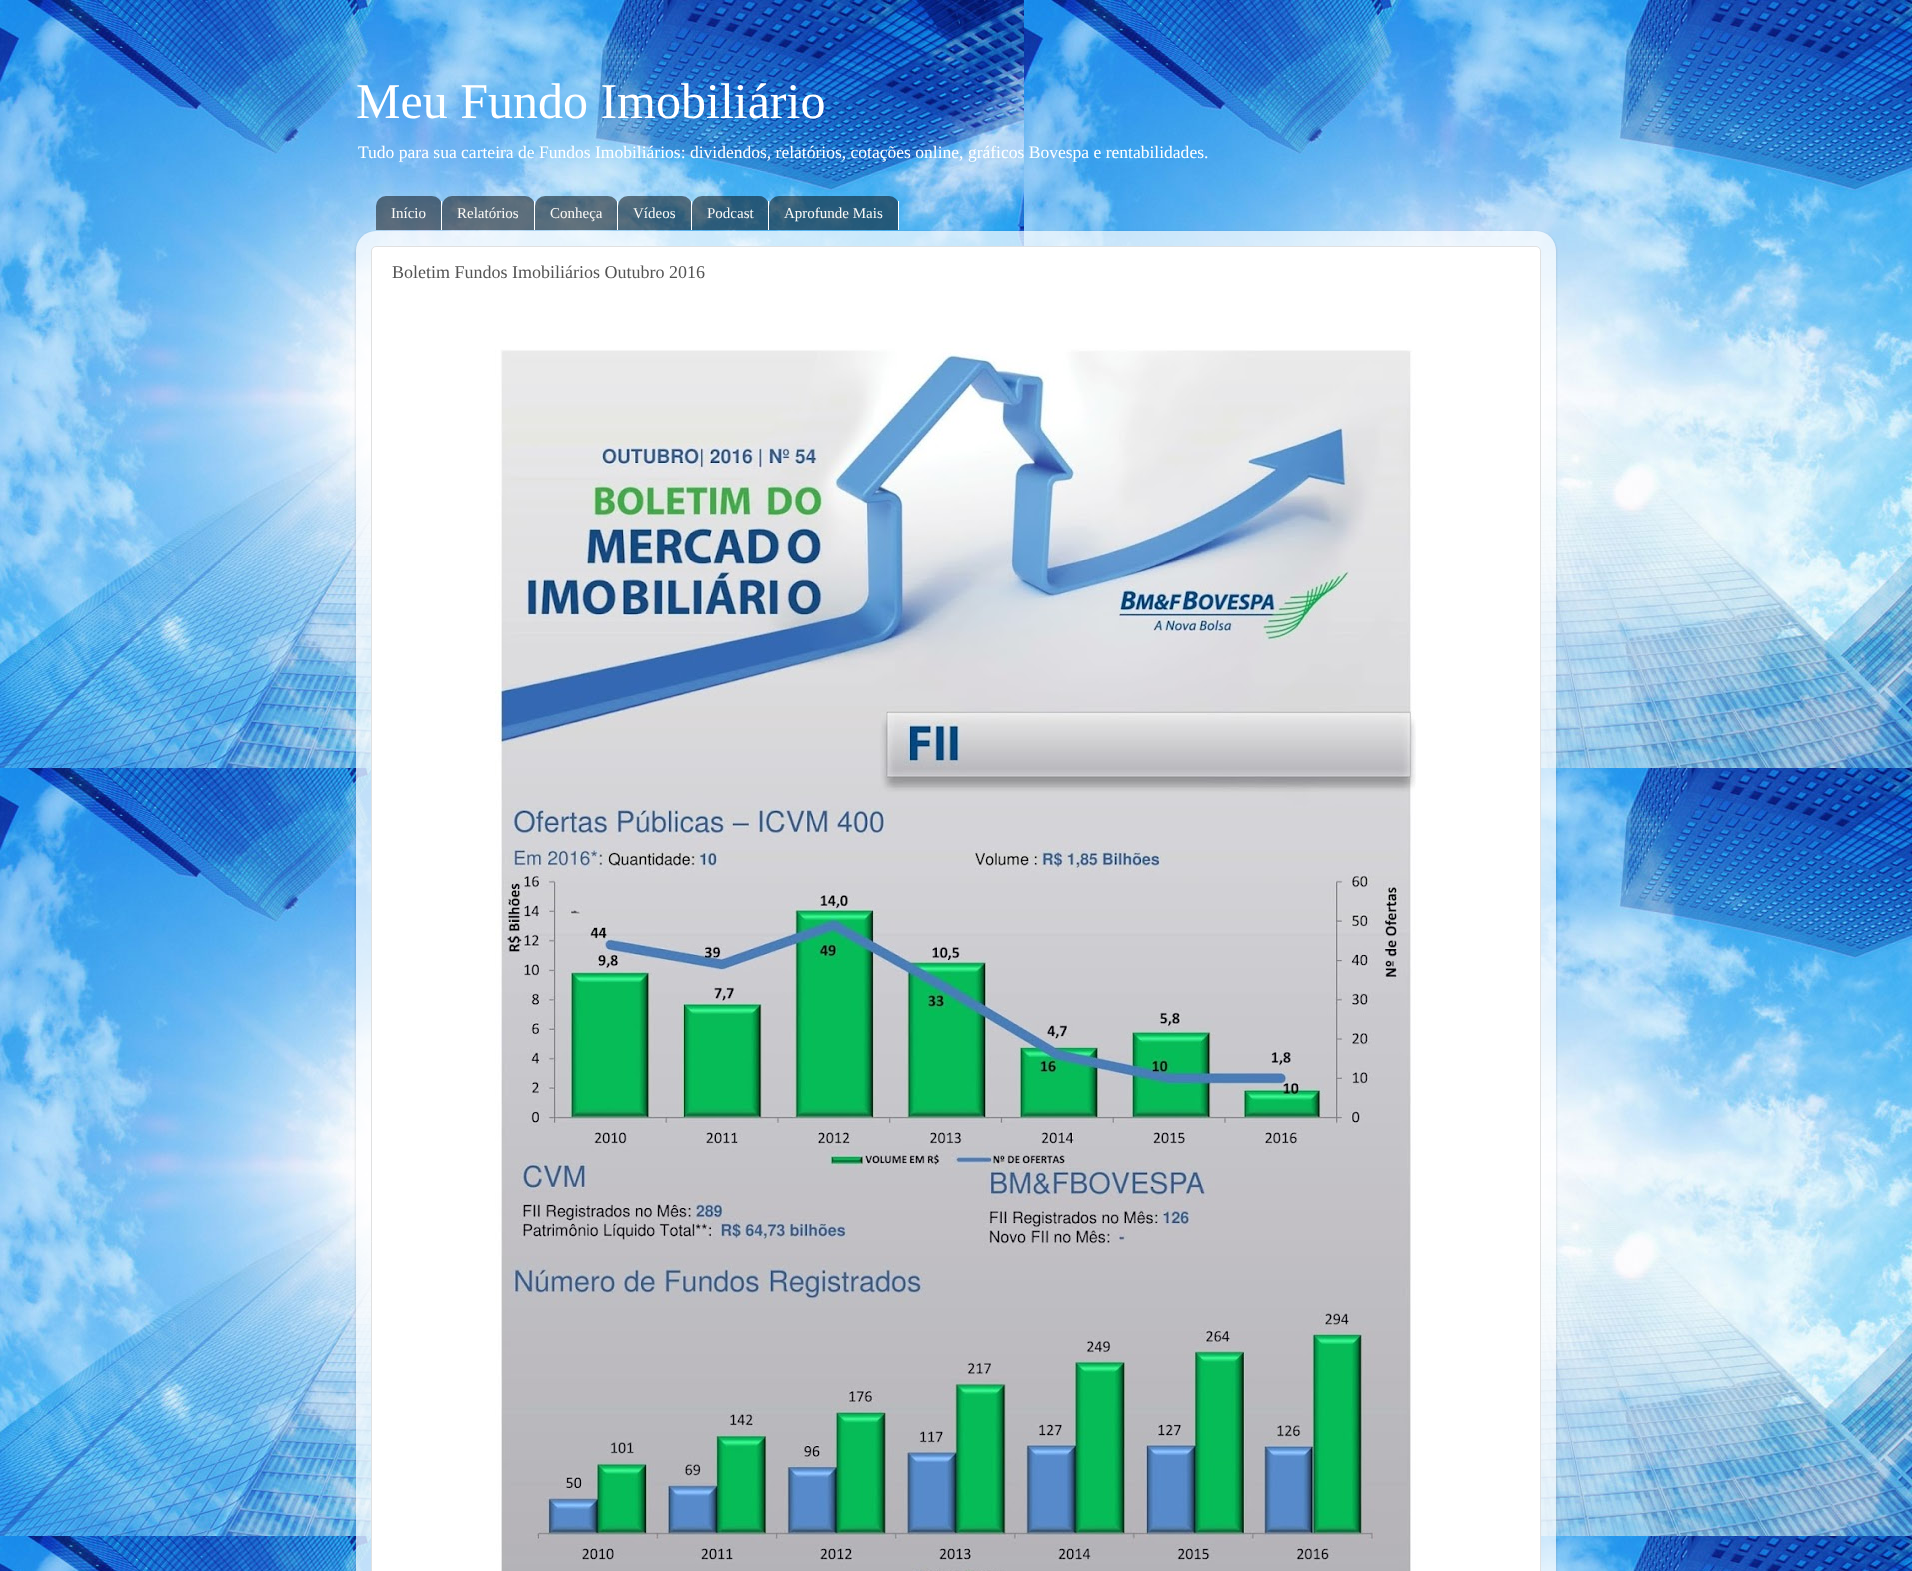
async function draw(canvas) {
  canvas.width = 1912;
  canvas.height = 1571;
  const ctx = canvas.getContext('2d');
  ctx.miterLimit = 4;
  ctx.fontKerning = 'normal';
  function label(s, x, y, font, color) {
    ctx.font = font;
    ctx.fillStyle = color;
    ctx.fillText(s, x, y);
  }
  function rect(x, y, w, h, color) {
    ctx.fillStyle = color;
    ctx.fillRect(x, y, w, h);
  }
  async function image(src, x, y, w, h) {
    const img = new Image();
    img.src = src;
    await img.decode();
    ctx.drawImage(img, x, y, w, h);
  }
  let path;

  rect(0, 0, 1912, 1571, '#fff');
  await image('assets/img1.png', 0, 0, 1912, 1571);
  label('Meu Fundo Imobiliário', 356, 118, '50px Liberation Serif', '#fff');
  label('Tudo para sua carteira de Fundos Imobiliários: dividendos, relatórios, cotações online, gráficos Bovespa e rentabilidades.', 358, 158, '17.55px Liberation Serif', '#fff');
  await image('assets/img2.png', 376, 196, 65, 34);
  rect(441, 201, 1, 29, '#fff');
  label('Início', 391, 218, '15px Liberation Serif', '#faf9f7');
  await image('assets/img3.png', 442, 196, 92, 34);
  rect(534, 201, 1, 29, '#fff');
  label('Relatórios', 457, 218, '15px Liberation Serif', '#faf9f7');
  await image('assets/img4.png', 535, 196, 82, 34);
  rect(617, 201, 1, 29, '#fff');
  label('Conheça', 550, 218, '15px Liberation Serif', '#faf9f7');
  await image('assets/img5.png', 618, 196, 73, 34);
  rect(691, 201, 1, 29, '#fff');
  label('Vídeos', 633, 218, '15px Liberation Serif', '#faf9f7');
  await image('assets/img6.png', 692, 196, 76, 34);
  rect(768, 201, 1, 29, '#fff');
  label('Podcast', 707, 218, '15px Liberation Serif', '#faf9f7');
  await image('assets/img7.png', 769, 196, 129, 34);
  rect(898, 201, 1, 29, '#fff');
  label('Aprofunde Mais', 784, 218, '15px Liberation Serif', '#faf9f7');
  ctx.save();
  path = new Path2D('M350 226H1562V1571H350ZM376 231H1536C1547 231 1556 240 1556 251V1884H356V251C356 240 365 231 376 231Z');
  ctx.clip(path, 'evenodd');
  ctx.fillStyle = '#00000026';
  ctx.filter = 'blur(1.5px)';
  ctx.beginPath();
  ctx.roundRect(356, 232, 1200, 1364, 20);
  ctx.fill();
  ctx.filter = 'none';
  ctx.restore();
  await image('assets/img8.png', 356, 231, 1200, 1340);
  ctx.fillStyle = '#fff';
  ctx.beginPath();
  ctx.roundRect(371.5, 246.5, 1169, 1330, 4.5);
  ctx.fill();
  ctx.strokeStyle = '#e0e0e0';
  ctx.stroke();
  label('Boletim Fundos Imobiliários Outubro 2016', 392, 278, '18px Liberation Serif', '#545454');
  await image('assets/img9.png', 495, 348, 921, 1223);
}

draw(document.querySelector('canvas'));
